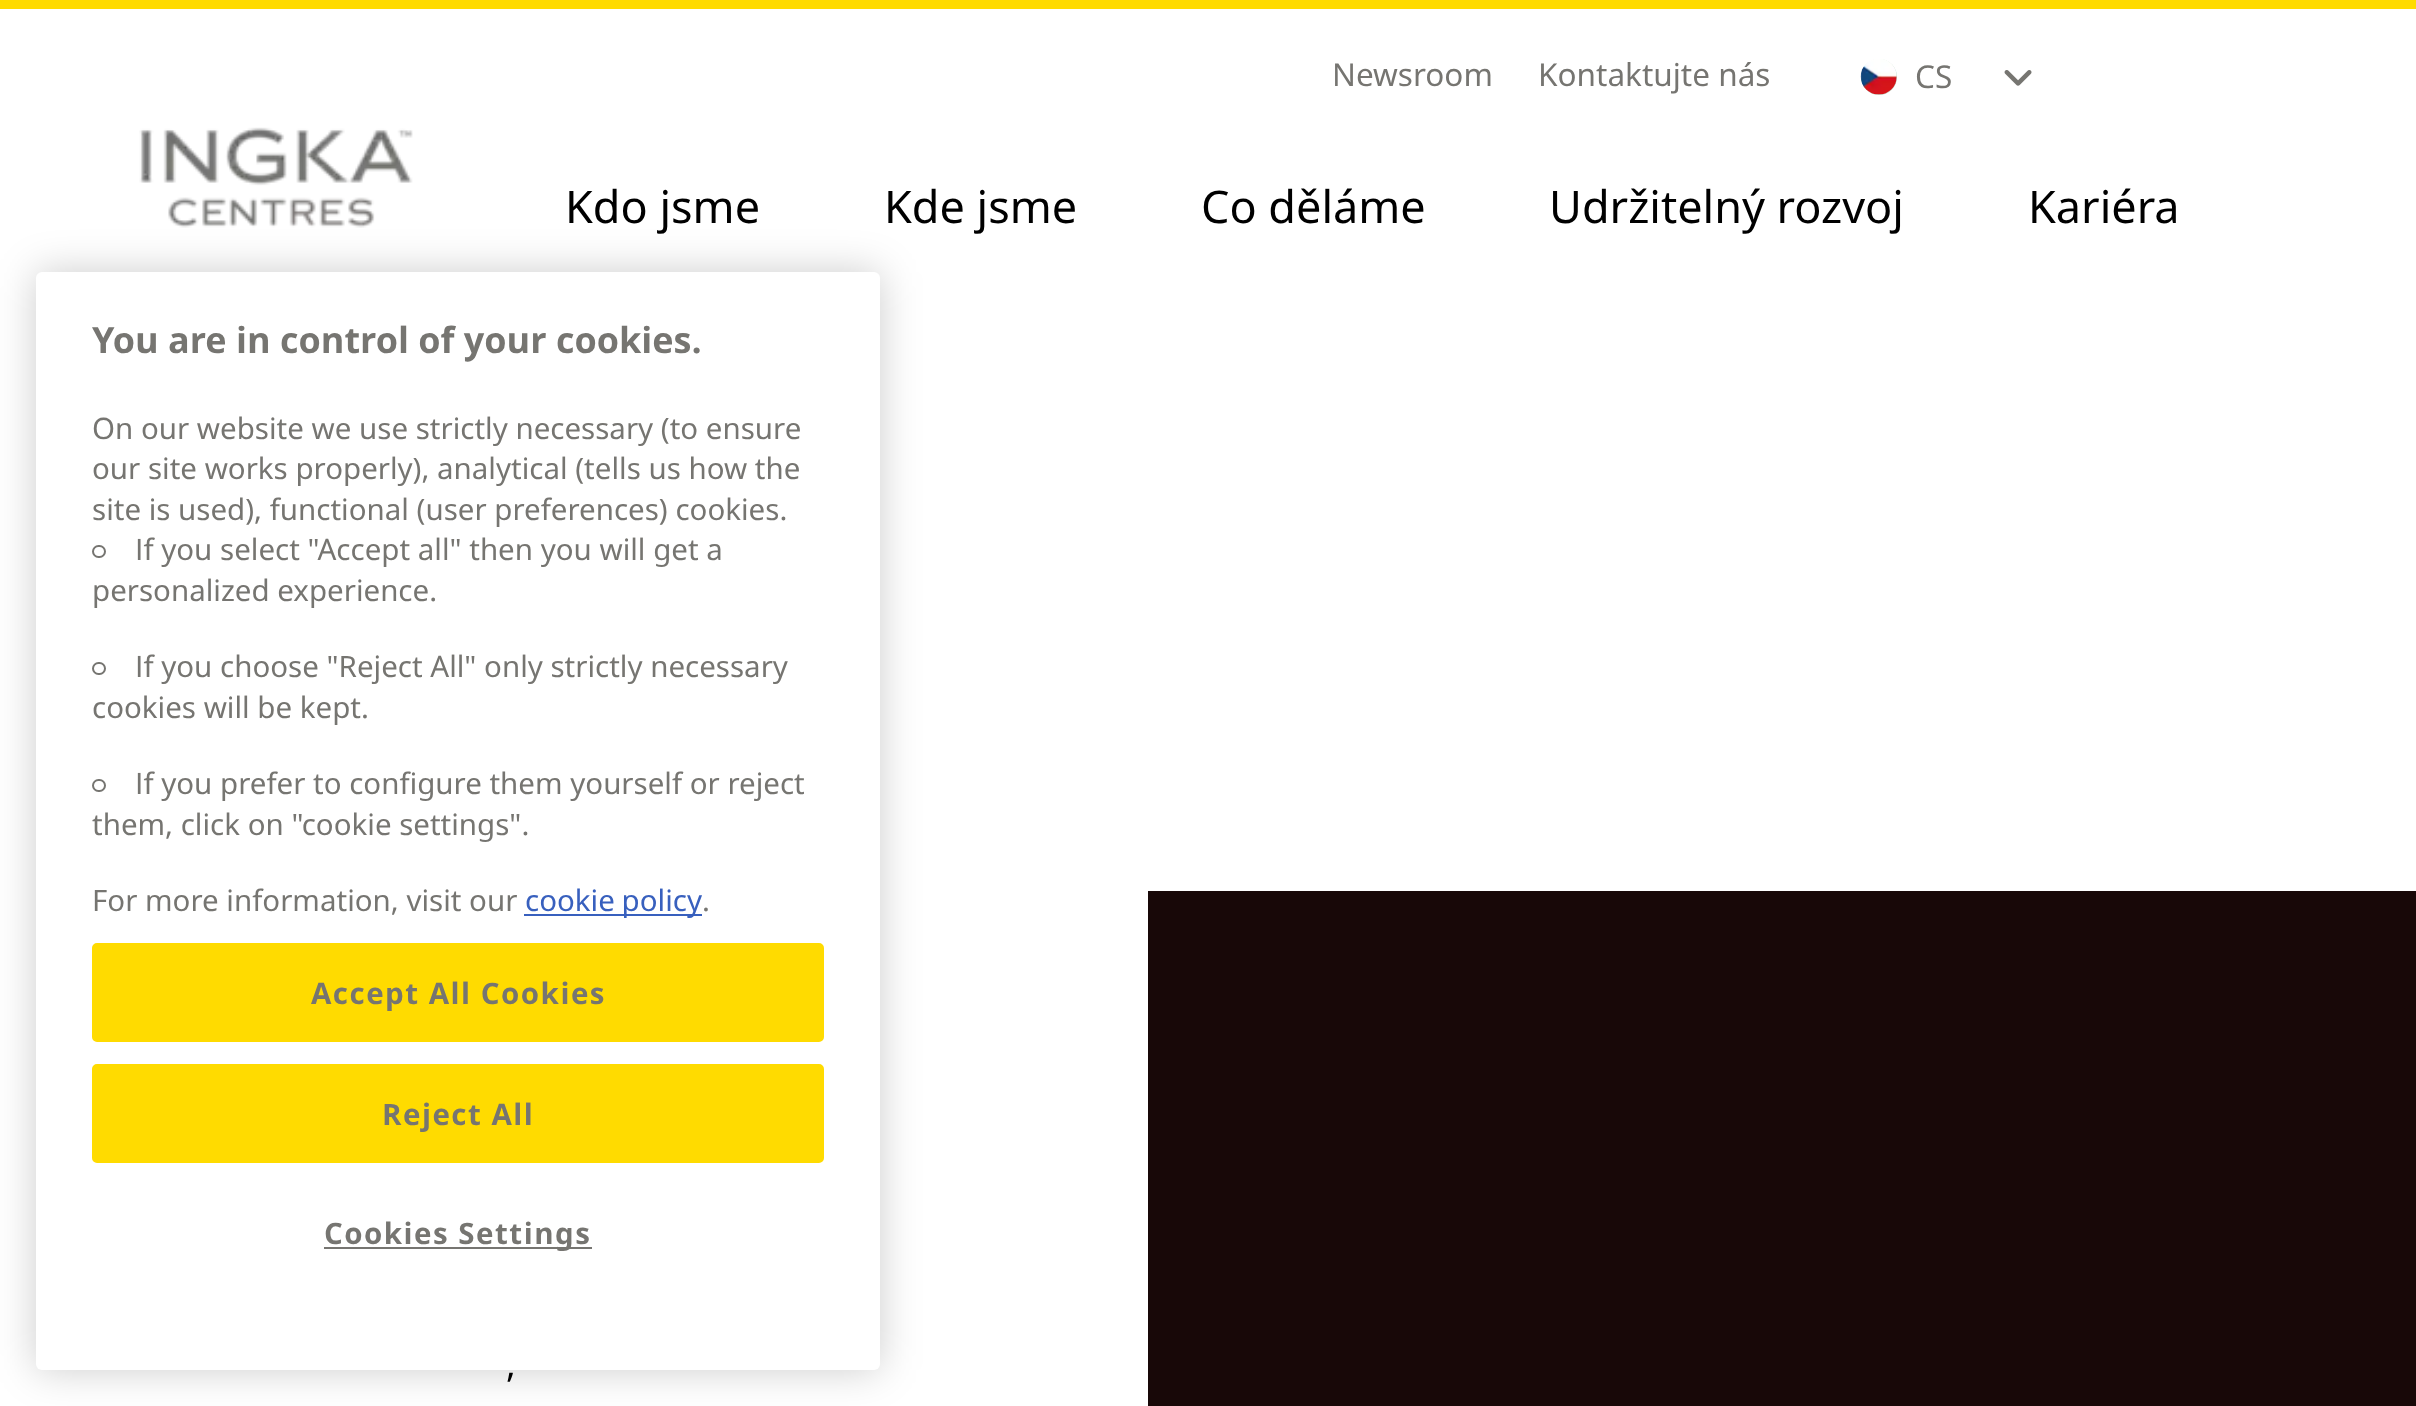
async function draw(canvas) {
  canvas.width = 2416;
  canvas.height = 1406;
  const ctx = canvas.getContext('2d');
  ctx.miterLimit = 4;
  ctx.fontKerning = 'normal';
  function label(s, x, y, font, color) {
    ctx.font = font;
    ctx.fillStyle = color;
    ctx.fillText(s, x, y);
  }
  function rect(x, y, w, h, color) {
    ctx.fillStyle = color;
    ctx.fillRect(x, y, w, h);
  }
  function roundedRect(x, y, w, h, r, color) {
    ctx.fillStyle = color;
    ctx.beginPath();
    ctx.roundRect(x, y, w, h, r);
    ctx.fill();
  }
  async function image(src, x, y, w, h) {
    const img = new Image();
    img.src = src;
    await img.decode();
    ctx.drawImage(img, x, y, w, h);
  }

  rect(0, 0, 2416, 1406, '#fff');
  await image('assets/img1.png', 139, 127, 274, 101);
  ctx.fillStyle = '#00000033';
  ctx.filter = 'blur(20px)';
  ctx.beginPath();
  ctx.roundRect(36, 272, 844, 1098, 6);
  ctx.fill();
  ctx.filter = 'none';
  roundedRect(36, 272, 844, 1098, 6, '#fff');
  label('You are in control of your cookies.', 92, 353, 'bold 36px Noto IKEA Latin', '#767571');
  label('On our website we use strictly necessary (to ensure', 92, 439, '29.5px Noto IKEA Latin', '#767571');
  label('our site works properly), analytical (tells us how the', 92, 479, '29.5px Noto IKEA Latin', '#767571');
  label('site is used), functional (user preferences) cookies.', 92, 520, '29.5px Noto IKEA Latin', '#767571');
  ctx.beginPath();
  ctx.roundRect(93, 546, 12, 11, 5.5);
  ctx.strokeStyle = '#767571';
  ctx.lineWidth = 2;
  ctx.stroke();
  label('If you select "Accept all" then you will get a', 135, 560, '29.5px Noto IKEA Latin', '#767571');
  label('personalized experience.', 92, 601, '29.5px Noto IKEA Latin', '#767571');
  ctx.beginPath();
  ctx.roundRect(93, 663, 12, 11, 5.5);
  ctx.stroke();
  label('If you choose "Reject All" only strictly necessary', 135, 677, '29.5px Noto IKEA Latin', '#767571');
  label('cookies will be kept.', 92, 718, '29.5px Noto IKEA Latin', '#767571');
  ctx.beginPath();
  ctx.roundRect(93, 780, 12, 11, 5.5);
  ctx.stroke();
  label('If you prefer to configure them yourself or reject', 135, 794, '29.5px Noto IKEA Latin', '#767571');
  label('them, click on "cookie settings".', 92, 835, '29.5px Noto IKEA Latin', '#767571');
  label('For more information, visit our', 92, 911, '29.5px Noto IKEA Latin', '#767571');
  rect(524, 914, 178, 2, '#3860be');
  ctx.wordSpacing = '-1px';
  label('cookie policy', 525, 911, '29.5px Noto IKEA Latin', '#3860be');
  ctx.wordSpacing = '0px';
  label('.', 702, 911, '29.5px Noto IKEA Latin', '#767571');
  ctx.fillStyle = '#ffdb00';
  ctx.beginPath();
  ctx.roundRect(93, 944, 730, 97, 4);
  ctx.fill();
  ctx.strokeStyle = '#ffdb00';
  ctx.stroke();
  ctx.letterSpacing = '1.5px';
  label('Accept All Cookies', 311, 1004, 'bold 29.5px Noto IKEA Latin', '#767571');
  ctx.fillStyle = '#ffdb00';
  ctx.beginPath();
  ctx.roundRect(93, 1065, 730, 97, 4);
  ctx.fill();
  ctx.stroke();
  label('Reject All', 382, 1125, 'bold 29.5px Noto IKEA Latin', '#767571');
  rect(324, 1247, 268, 2, '#767571');
  label('Cookies Settings', 324, 1244, 'bold 29.5px Noto IKEA Latin', '#767571');
  rect(0, 0, 2416, 9, '#ffdb00');
  ctx.letterSpacing = '0px';
  label('Newsroom', 1332, 86, '31.5px Noto IKEA Latin', '#767571');
  label('Kontaktujte nás', 1538, 86, '31.5px Noto IKEA Latin', '#767571');
  ctx.fillStyle = '#c0d9ca';
  ctx.beginPath();
  ctx.arc(1879, 77, 18, 0, 2 * Math.PI);
  ctx.fill();
  await image('assets/img2.png', 1860, 59, 37, 36);
  label('CS', 1915, 88, '31.5px Noto IKEA Latin', '#767571');
  await image('assets/img3.png', 2004, 70, 28, 16);
  label('Kdo jsme', 565, 223, '45px Noto IKEA Latin', '#000');
  label('Kde jsme', 884, 223, '45px Noto IKEA Latin', '#000');
  label('Co děláme', 1201, 223, '45px Noto IKEA Latin', '#000');
  label('Udržitelný rozvoj', 1549, 223, '45px Noto IKEA Latin', '#000');
  label('Kariéra', 2028, 223, '45px Noto IKEA Latin', '#000');
  label(',', 506, 1377, '36px Noto IKEA Latin', '#000');
  rect(1148, 891, 1268, 515, '#180808');
}

draw(document.querySelector('canvas'));
